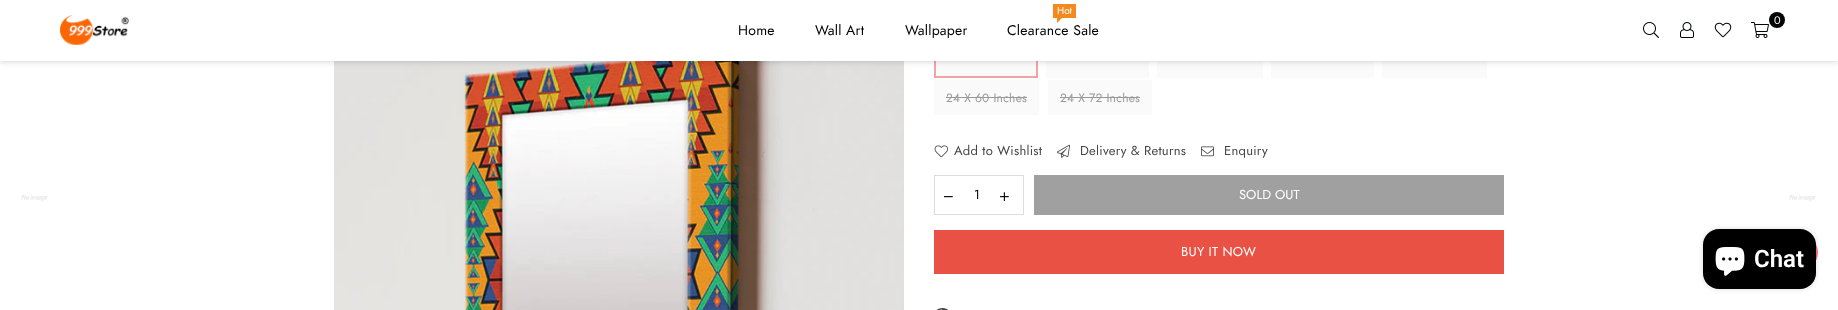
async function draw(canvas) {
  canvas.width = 1838;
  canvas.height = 310;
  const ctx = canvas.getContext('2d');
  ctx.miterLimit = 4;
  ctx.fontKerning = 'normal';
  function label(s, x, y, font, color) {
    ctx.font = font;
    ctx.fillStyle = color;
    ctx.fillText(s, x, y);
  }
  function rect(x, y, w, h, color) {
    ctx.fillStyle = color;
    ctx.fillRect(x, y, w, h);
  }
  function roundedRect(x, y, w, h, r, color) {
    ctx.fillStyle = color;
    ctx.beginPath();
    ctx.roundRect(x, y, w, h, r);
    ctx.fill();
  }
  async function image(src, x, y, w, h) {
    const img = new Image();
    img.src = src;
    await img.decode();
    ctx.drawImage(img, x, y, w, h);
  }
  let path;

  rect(0, 0, 1838, 310, '#fff');
  await image('assets/img7.png', 334, 61, 570, 249);
  rect(936, 61, 100, 15, '#fafafa');
  ctx.strokeStyle = '#f1a4a4';
  ctx.lineWidth = 2;
  ctx.strokeRect(935, 44, 102, 33);
  rect(1046, 61, 103, 17, '#fafafa');
  rect(1157, 61, 106, 17, '#fafafa');
  rect(1271, 61, 103, 17, '#fafafa');
  rect(1382, 61, 105, 17, '#fafafa');
  ctx.fillStyle = '#00000033';
  ctx.filter = 'blur(3.5px)';
  ctx.beginPath();
  ctx.rect(0, 0, 1838, 61);
  ctx.fill();
  ctx.filter = 'none';
  rect(0, 0, 1838, 61, '#fff');
  await image('assets/img1.png', 60, 15, 69, 30);
  ctx.letterSpacing = '0.25px';
  label('Home', 738, 35, '14px Jost', '#000');
  label('Wall Art', 815, 35, '14px Jost', '#000');
  label('Wallpaper', 905, 35, '14px Jost', '#000');
  rect(1053, 4, 23, 14, '#f48920');
  ctx.letterSpacing = '0px';
  label('Hot', 1057, 14, '10px Jost', '#fff');
  ctx.fillStyle = '#f48920';
  path = new Path2D('M1057 23V13L1062 18Z');
  ctx.fill(path);
  ctx.letterSpacing = '0.25px';
  label('Clearance Sale', 1007, 35, '14px Jost', '#000');
  ctx.fillStyle = '#030505';
  ctx.beginPath();
  ctx.arc(1777, 20, 8, 0, 2 * Math.PI);
  ctx.fill();
  label('0', 1774, 24, '11px Jost', '#fff');
  await image('assets/img2.png', 1751, 22, 18, 16);
  await image('assets/img3.png', 1643, 22, 16, 16);
  await image('assets/img4.png', 1680, 22, 14, 16);
  await image('assets/img5.png', 1714, 22, 18, 16);
  await image('assets/img6.png', 21, 194, 27, 8);
  rect(934, 80, 105, 35, '#fafafa');
  label('24 X 60 Inches', 946, 102, '12px Jost', '#999');
  rect(946, 97, 81, 1, '#999');
  rect(1048, 80, 104, 35, '#fafafa');
  label('24 X 72 Inches', 1060, 102, '12px Jost', '#999');
  rect(1060, 97, 80, 1, '#999');
  await image('assets/img8.png', 934, 145, 14, 13);
  label('Add to Wishlist', 954, 155, '13px Jost', '#444');
  await image('assets/img9.png', 1057, 144, 13, 14);
  label('Delivery & Returns', 1080, 155, '13px Jost', '#444');
  await image('assets/img10.png', 1201, 146, 13, 11);
  label('Enquiry', 1224, 155, '13px Jost', '#444');
  ctx.strokeStyle = '#ddd';
  ctx.lineWidth = 1;
  ctx.strokeRect(934.5, 175.5, 89, 39);
  await image('assets/img11.png', 944, 196, 9, 2);
  ctx.letterSpacing = '0px';
  label('1', 974, 199, '13px Jost', '#000');
  await image('assets/img12.png', 1000, 192, 9, 9);
  rect(1034, 175, 470, 40, '#a0a0a0');
  label('SOLD OUT', 1239, 199, '13px Jost', '#fff');
  rect(934, 230, 570, 44, '#e95144');
  ctx.letterSpacing = '0.25px';
  label('BUY IT NOW', 1181, 256, '13px Jost', '#fff');
  await image('assets/img13.png', 936, 308, 12, 2);
  await image('assets/img6.png', 1789, 194, 27, 8);
  ctx.fillStyle = '#f77575';
  ctx.beginPath();
  ctx.arc(1800.5, 252.5, 17.5, 0, 2 * Math.PI);
  ctx.fill();
  ctx.fillStyle = '#00000026';
  ctx.filter = 'blur(2.5px)';
  ctx.beginPath();
  ctx.roundRect(1703, 229, 113, 60, 16);
  ctx.fill();
  ctx.filter = 'none';
  roundedRect(1703, 229, 113, 60, 16, '#000');
  await image('assets/img14.png', 1715, 247, 30, 29);
  ctx.letterSpacing = '0px';
  label('Chat', 1754, 267, '600 24px Roboto', '#fff');
}

draw(document.querySelector('canvas'));
